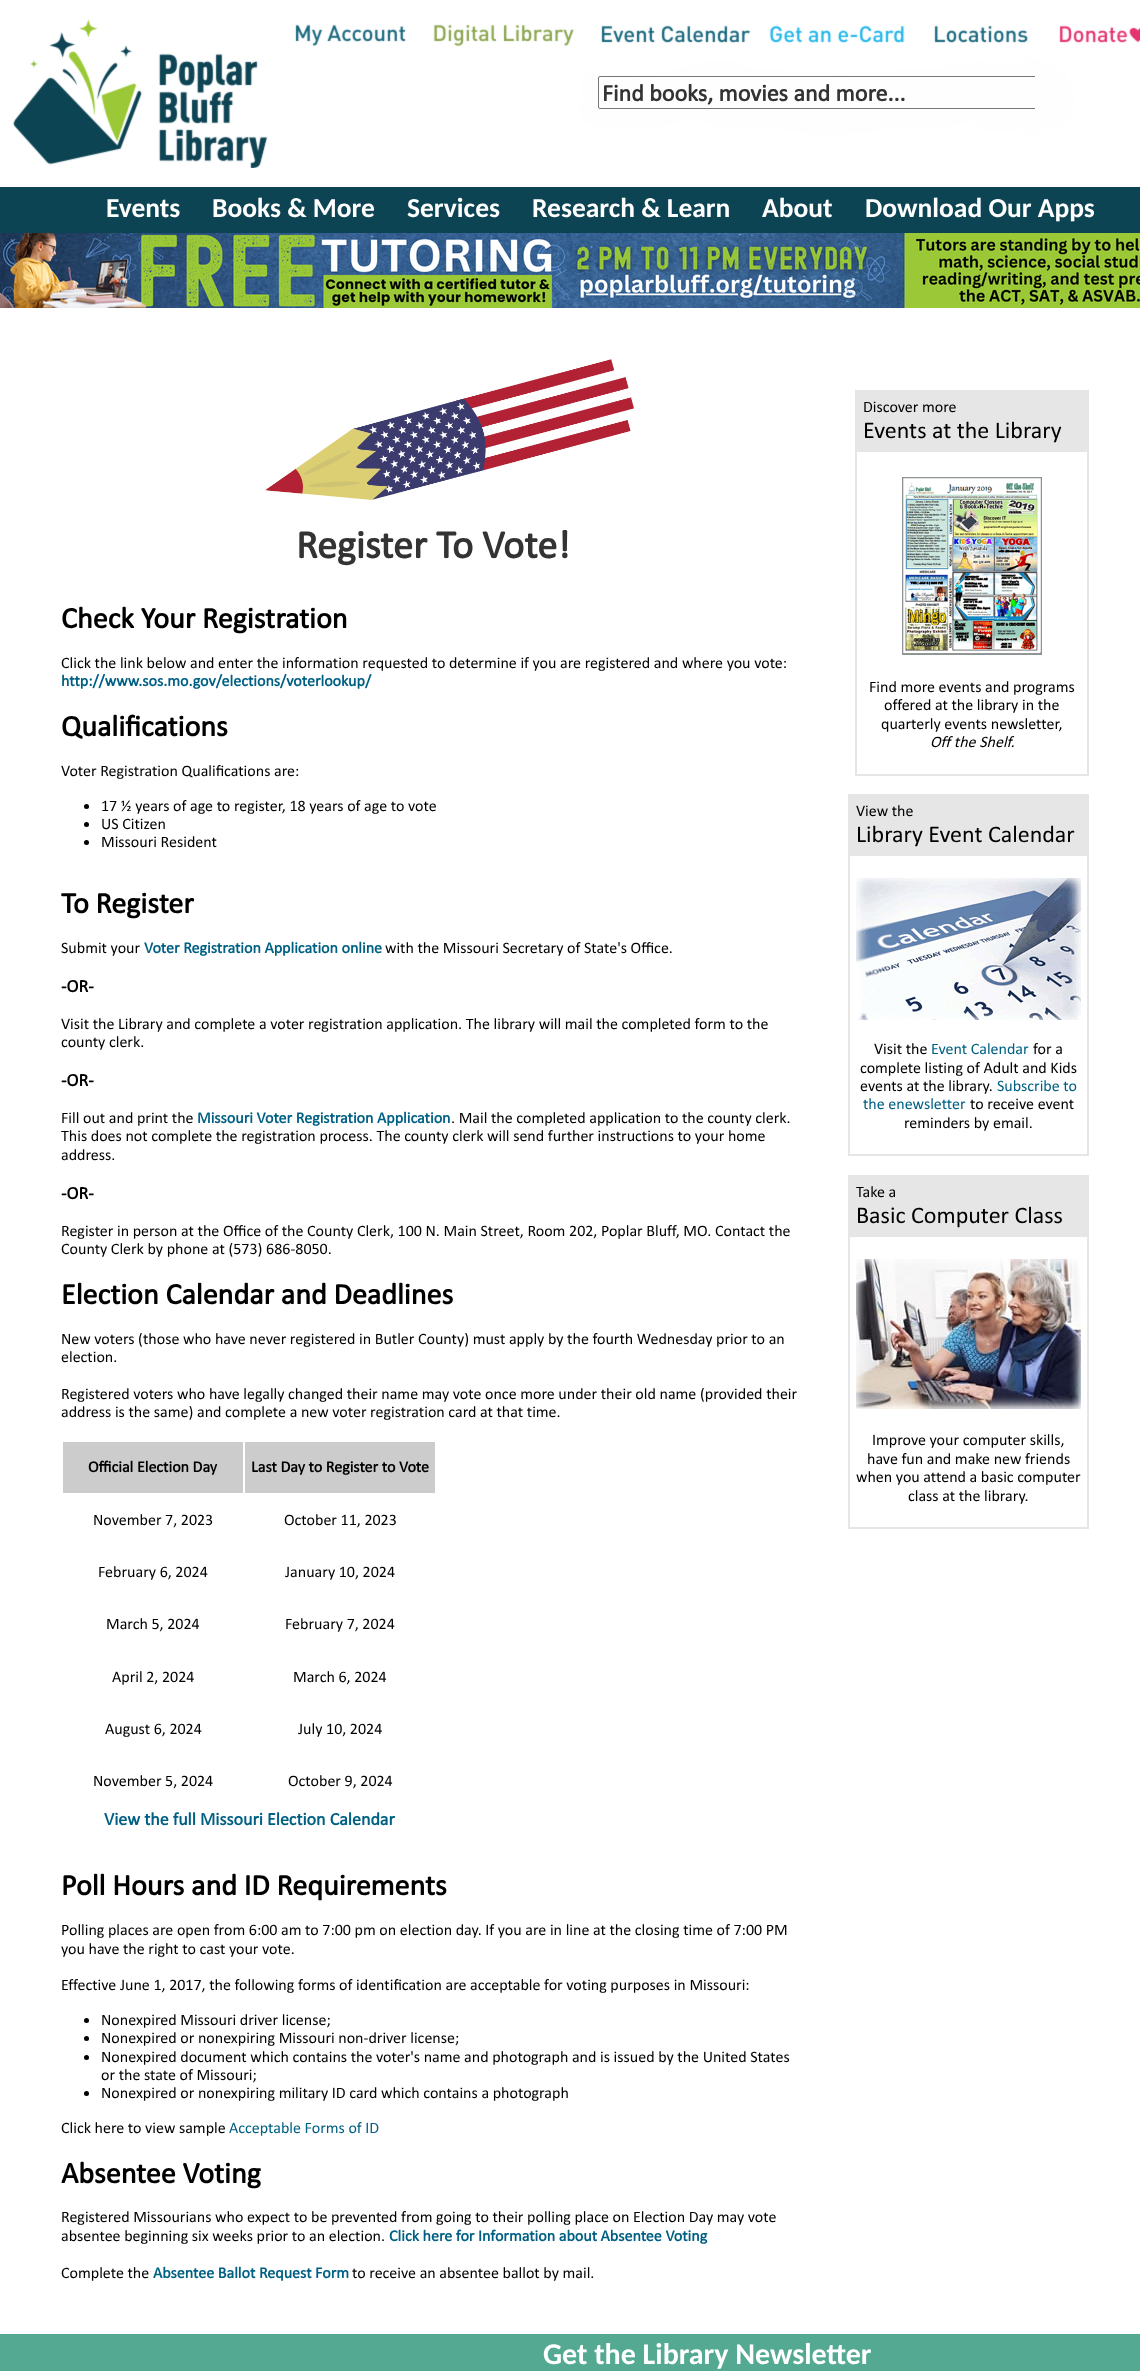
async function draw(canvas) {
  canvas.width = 1140;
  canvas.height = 2371;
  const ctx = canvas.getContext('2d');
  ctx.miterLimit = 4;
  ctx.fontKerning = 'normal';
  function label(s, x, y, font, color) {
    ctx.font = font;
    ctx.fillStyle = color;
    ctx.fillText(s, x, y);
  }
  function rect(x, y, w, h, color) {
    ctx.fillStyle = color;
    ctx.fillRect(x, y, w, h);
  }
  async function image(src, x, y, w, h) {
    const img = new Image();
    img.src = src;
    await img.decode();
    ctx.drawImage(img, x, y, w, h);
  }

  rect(0, 0, 1140, 2371, '#fff');
  await image('assets/img1.png', 0, 18, 1140, 150);
  ctx.save();
  ctx.beginPath();
  ctx.rect(598, 76, 437, 40);
  ctx.clip();
  ctx.beginPath();
  ctx.roundRect(598.5, 76.5, 533, 32, 1.5);
  ctx.strokeStyle = '#767676';
  ctx.stroke();
  ctx.restore();
  label('Find books, movies and more...', 602, 101, 'bold 24px Calibri', '#333');
  rect(0, 187, 1140, 46, '#0d4453');
  label('Events', 106, 217, 'bold 27.5px Carlito', '#fff');
  label('Books & More', 212, 217, 'bold 27.5px Carlito', '#fff');
  label('Services', 407, 217, 'bold 27.5px Carlito', '#fff');
  label('Research & Learn', 532, 217, 'bold 27.5px Carlito', '#fff');
  label('About', 762, 217, 'bold 27.5px Carlito', '#fff');
  label('Download Our Apps', 865, 217, 'bold 27.5px Carlito', '#fff');
  await image('assets/img2.png', 0, 233, 1140, 75);
  await image('assets/img3.png', 237, 353, 397, 147);
  label('Register To Vote!', 296, 558, 'bold 40px Calibri', '#333');
  label('Check Your Registration', 61, 628, 'bold 30px Calibri', '#000');
  label('Click the link below and enter the information requested to determine if you are registered and where you vote:', 61, 668, '16px Calibri', '#000');
  label('http://www.sos.mo.gov/elections/voterlookup/', 61, 686, 'bold 16px Calibri', '#006084');
  label('Qualifications', 61, 736, 'bold 30px Calibri', '#000');
  label('Voter Registration Qualifications are:', 61, 776, '16px Calibri', '#000');
  ctx.beginPath();
  ctx.arc(86.5, 806.5, 2.5, 0, 2 * Math.PI);
  ctx.fill();
  label('17 ½ years of age to register, 18 years of age to vote', 101, 811, '16px Calibri', '#000');
  ctx.beginPath();
  ctx.arc(86.5, 824.5, 2.5, 0, 2 * Math.PI);
  ctx.fill();
  label('US Citizen', 101, 829, '16px Calibri', '#000');
  ctx.beginPath();
  ctx.arc(86.5, 842.5, 2.5, 0, 2 * Math.PI);
  ctx.fill();
  label('Missouri Resident', 101, 847, '16px Calibri', '#000');
  label('To Register', 61, 913, 'bold 30px Calibri', '#000');
  label('Submit your', 61, 953, '16px Calibri', '#000');
  label('Voter Registration Application online', 144, 953, 'bold 16px Calibri', '#006084');
  label('with the Missouri Secretary of State\'s Office.', 385, 953, '16px Calibri', '#000');
  label('-OR-', 61, 992, 'bold 18px Calibri', '#000');
  label('Visit the Library and complete a voter registration application. The library will mail the completed form to the', 61, 1029, '16px Calibri', '#000');
  label('county clerk.', 61, 1047, '16px Calibri', '#000');
  label('-OR-', 61, 1086, 'bold 18px Calibri', '#000');
  label('Fill out and print the', 61, 1123, '16px Calibri', '#000');
  label('Missouri Voter Registration Application', 197, 1123, 'bold 16px Calibri', '#006084');
  label('. Mail the completed application to the county clerk.', 451, 1123, '16px Calibri', '#000');
  label('This does not complete the registration process. The county clerk will send further instructions to your home', 61, 1141, '16px Calibri', '#000');
  label('address.', 61, 1160, '16px Calibri', '#000');
  label('-OR-', 61, 1199, 'bold 18px Calibri', '#000');
  label('Register in person at the Office of the County Clerk, 100 N. Main Street, Room 202, Poplar Bluff, MO. Contact the', 61, 1236, '16px Calibri', '#000');
  label('County Clerk by phone at (573) 686-8050.', 61, 1254, '16px Calibri', '#000');
  label('Election Calendar and Deadlines', 61, 1304, 'bold 30px Calibri', '#000');
  label('New voters (those who have never registered in Butler County) must apply by the fourth Wednesday prior to an', 61, 1344, '16px Calibri', '#000');
  label('election.', 61, 1362, '16px Calibri', '#000');
  label('Registered voters who have legally changed their name may vote once more under their old name (provided their', 61, 1399, '16px Calibri', '#000');
  label('address is the same) and complete a new voter registration card at that time.', 61, 1417, '16px Calibri', '#000');
  rect(63, 1442, 180, 51, '#ccc');
  label('Official Election Day', 88, 1472, 'bold 16px Calibri', '#000');
  rect(245, 1442, 190, 51, '#ccc');
  label('Last Day to Register to Vote', 251, 1472, 'bold 16px Calibri', '#000');
  label('November 7, 2023', 93, 1525, '16px Calibri', '#000');
  label('October 11, 2023', 284, 1525, '16px Calibri', '#000');
  label('February 6, 2024', 98, 1577, '16px Calibri', '#000');
  label('January 10, 2024', 285, 1577, '16px Calibri', '#000');
  label('March 5, 2024', 106, 1629, '16px Calibri', '#000');
  label('February 7, 2024', 285, 1629, '16px Calibri', '#000');
  label('April 2, 2024', 112, 1682, '16px Calibri', '#000');
  label('March 6, 2024', 293, 1682, '16px Calibri', '#000');
  label('August 6, 2024', 105, 1734, '16px Calibri', '#000');
  label('July 10, 2024', 298, 1734, '16px Calibri', '#000');
  label('November 5, 2024', 93, 1786, '16px Calibri', '#000');
  label('October 9, 2024', 288, 1786, '16px Calibri', '#000');
  label('View the full Missouri Election Calendar', 104, 1825, 'bold 18px Calibri', '#006084');
  label('Poll Hours and ID Requirements', 61, 1895, 'bold 30px Calibri', '#000');
  label('Polling places are open from 6:00 am to 7:00 pm on election day. If you are in line at the closing time of 7:00 PM', 61, 1935, '16px Calibri', '#000');
  label('you have the right to cast your vote.', 61, 1954, '16px Calibri', '#000');
  label('Effective June 1, 2017, the following forms of identification are acceptable for voting purposes in Missouri:', 61, 1990, '16px Calibri', '#000');
  ctx.beginPath();
  ctx.arc(86.5, 2020.5, 2.5, 0, 2 * Math.PI);
  ctx.fill();
  label('Nonexpired Missouri driver license;', 101, 2025, '16px Calibri', '#000');
  ctx.beginPath();
  ctx.arc(86.5, 2038.5, 2.5, 0, 2 * Math.PI);
  ctx.fill();
  label('Nonexpired or nonexpiring Missouri non-driver license;', 101, 2043, '16px Calibri', '#000');
  ctx.beginPath();
  ctx.arc(86.5, 2057.5, 2.5, 0, 2 * Math.PI);
  ctx.fill();
  label('Nonexpired document which contains the voter\'s name and photograph and is issued by the United States', 101, 2062, '16px Calibri', '#000');
  label('or the state of Missouri;', 101, 2080, '16px Calibri', '#000');
  ctx.beginPath();
  ctx.arc(86.5, 2093.5, 2.5, 0, 2 * Math.PI);
  ctx.fill();
  label('Nonexpired or nonexpiring military ID card which contains a photograph', 101, 2098, '16px Calibri', '#000');
  label('Click here to view sample', 61, 2133, '16px Calibri', '#000');
  label('Acceptable Forms of ID', 229, 2133, '16px Calibri', '#006084');
  label('Absentee Voting', 61, 2183, 'bold 30px Calibri', '#000');
  label('Registered Missourians who expect to be prevented from going to their polling place on Election Day may vote', 61, 2222, '16px Calibri', '#000');
  label('absentee beginning six weeks prior to an election.', 61, 2241, '16px Calibri', '#000');
  label('Click here for Information about Absentee Voting', 389, 2241, 'bold 16px Calibri', '#006084');
  label('Complete the', 61, 2278, '16px Calibri', '#000');
  label('Absentee Ballot Request Form', 153, 2278, 'bold 16px Calibri', '#006084');
  label('to receive an absentee ballot by mail.', 352, 2278, '16px Calibri', '#000');
  ctx.strokeStyle = '#e6e6e6';
  ctx.strokeRect(855.5, 390.5, 233, 385);
  rect(856, 391, 232, 60, '#e6e6e6');
  label('Discover more', 863, 412, '16px Calibri', '#000');
  label('Events at the Library', 863, 438, '24px Calibri', '#000');
  ctx.strokeRect(856.5, 451.5, 231, 323);
  await image('assets/img4.png', 902, 477, 140, 178);
  label('Find more events and programs', 869, 692, '16px Calibri', '#000');
  label('offered at the library in the', 884, 710, '16px Calibri', '#000');
  label('quarterly events newsletter,', 881, 729, '16px Calibri', '#000');
  label('Off the Shelf.', 930, 747, 'italic 16px Calibri', '#000');
  ctx.strokeRect(848.5, 794.5, 240, 361);
  rect(849, 795, 239, 60, '#e6e6e6');
  label('View the', 856, 816, '16px Calibri', '#000');
  label('Library Event Calendar', 856, 842, '24px Calibri', '#000');
  ctx.strokeRect(849.5, 855.5, 238, 299);
  await image('assets/img5.png', 856, 878, 225, 142);
  label('Visit the', 874, 1054, '16px Calibri', '#000');
  label('Event Calendar', 931, 1054, '16px Calibri', '#006084');
  label('for a', 1033, 1054, '16px Calibri', '#000');
  label('complete listing of Adult and Kids', 860, 1073, '16px Calibri', '#000');
  label('events at the library.', 860, 1091, '16px Calibri', '#000');
  label('Subscribe to', 997, 1091, '16px Calibri', '#006084');
  label('the enewsletter', 863, 1109, '16px Calibri', '#006084');
  label('to receive event', 970, 1109, '16px Calibri', '#000');
  label('reminders by email.', 904, 1128, '16px Calibri', '#000');
  ctx.strokeRect(848.5, 1175.5, 240, 353);
  rect(849, 1176, 239, 60, '#e6e6e6');
  label('Take a', 856, 1197, '16px Calibri', '#000');
  label('Basic Computer Class', 856, 1223, '24px Calibri', '#000');
  ctx.strokeRect(849.5, 1236.5, 238, 291);
  await image('assets/img6.png', 856, 1259, 225, 150);
  label('Improve your computer skills,', 872, 1445, '16px Calibri', '#000');
  label('have fun and make new friends', 867, 1464, '16px Calibri', '#000');
  label('when you attend a basic computer', 856, 1482, '16px Calibri', '#000');
  label('class at the library.', 908, 1501, '16px Calibri', '#000');
  rect(0, 2334, 1140, 37, '#54a992');
  label('Get the Library Newsletter', 543, 2364, 'bold 30px Carlito', '#fff');
}

draw(document.querySelector('canvas'));
